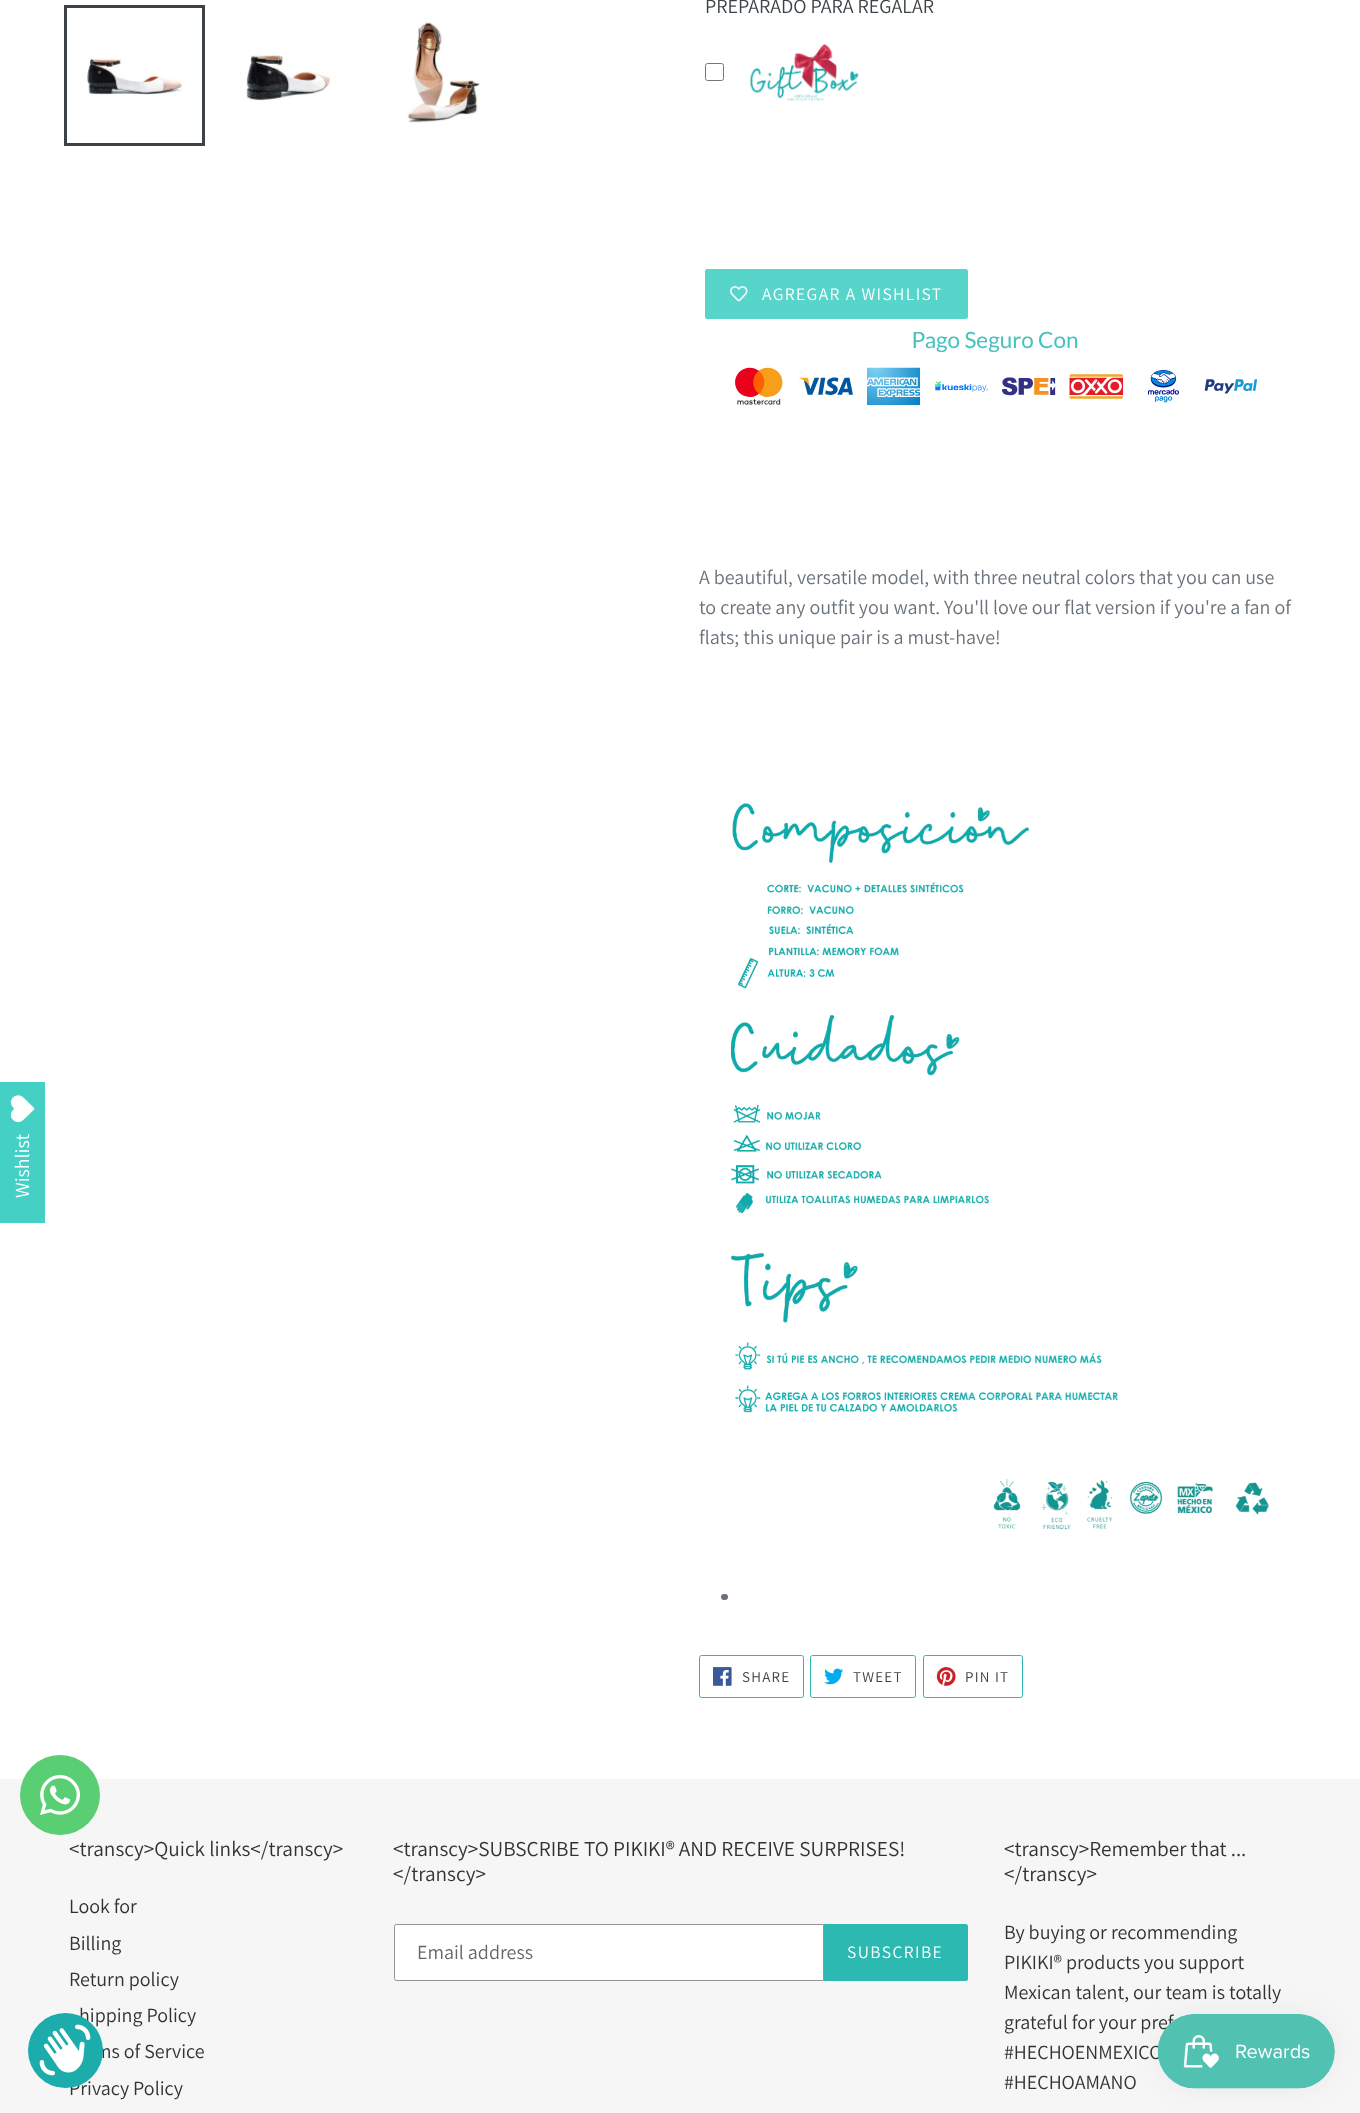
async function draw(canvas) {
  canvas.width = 1360;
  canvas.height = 2113;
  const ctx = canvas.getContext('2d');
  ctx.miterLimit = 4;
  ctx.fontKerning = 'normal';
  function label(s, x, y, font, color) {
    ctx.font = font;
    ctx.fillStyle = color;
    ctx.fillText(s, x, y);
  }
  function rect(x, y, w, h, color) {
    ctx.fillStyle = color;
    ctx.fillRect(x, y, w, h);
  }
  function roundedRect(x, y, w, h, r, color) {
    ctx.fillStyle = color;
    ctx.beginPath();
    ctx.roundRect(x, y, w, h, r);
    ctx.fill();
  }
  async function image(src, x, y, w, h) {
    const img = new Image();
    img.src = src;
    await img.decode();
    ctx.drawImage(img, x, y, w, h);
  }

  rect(0, 0, 1360, 2113, '#fff');
  rect(0, 1082, 45, 141, '#45d0c5');
  await image('assets/img1.png', 10, 1095, 25, 27);
  ctx.font = '20px Assistant';
  ctx.fillStyle = '#fff';
  ctx.save();
  ctx.translate(29, 1198);
  ctx.rotate(-90 * Math.PI / 180);
  ctx.fillText('Wishlist', 0, 0);
  ctx.restore();
  ctx.strokeStyle = '#3d4246';
  ctx.lineWidth = 3;
  ctx.strokeRect(65.5, 6.5, 138, 138);
  await image('assets/img2.png', 87, 58, 96, 37);
  await image('assets/img3.png', 246, 55, 85, 46);
  await image('assets/img4.png', 406, 22, 74, 101);
  label('PREPARADO PARA REGALAR', 705, 13, '20px Assistant', '#3d4246');
  ctx.beginPath();
  ctx.roundRect(705.5, 63.5, 18, 17, 2);
  ctx.strokeStyle = '#767676';
  ctx.lineWidth = 1;
  ctx.stroke();
  await image('assets/img5.png', 749, 43, 110, 59);
  roundedRect(705, 269, 263, 50, 2.5, '#58d5cb');
  await image('assets/img6.png', 730, 286, 18, 16);
  ctx.letterSpacing = '1.4px';
  label('AGREGAR A WISHLIST', 762, 300, '17.5px Assistant', '#fff');
  await image('assets/img7.png', 735, 331, 522, 74);
  ctx.letterSpacing = '0px';
  label('A beautiful, versatile model, with three neutral colors that you can use', 699, 584, '20px Assistant', '#69727b');
  label('to create any outfit you want. You\'ll love our flat version if you\'re a fan of', 699, 614, '20px Assistant', '#69727b');
  label('flats; this unique pair is a must-have!', 699, 644, '20px Assistant', '#69727b');
  await image('assets/img8.png', 730, 803, 539, 727);
  roundedRect(721, 1594, 7, 6, 3, '#69727b');
  ctx.beginPath();
  ctx.roundRect(699.5, 1655.5, 104, 42, 2);
  ctx.strokeStyle = '#2bb9b2';
  ctx.stroke();
  await image('assets/img9.png', 713, 1667, 19, 19);
  ctx.letterSpacing = '1.25px';
  label('SHARE', 742, 1682, '15px Assistant', '#3d4246');
  ctx.beginPath();
  ctx.roundRect(810.5, 1655.5, 105, 42, 2);
  ctx.stroke();
  await image('assets/img10.png', 824, 1668, 20, 17);
  label('TWEET', 853, 1682, '15px Assistant', '#3d4246');
  ctx.beginPath();
  ctx.roundRect(923.5, 1655.5, 99, 42, 2);
  ctx.stroke();
  await image('assets/img11.png', 936, 1667, 20, 19);
  label('PIN IT', 965, 1682, '15px Assistant', '#3d4246');
  rect(0, 1779, 1360, 334, '#f6f6f6');
  ctx.letterSpacing = '0px';
  label('<transcy>Quick links<\/transcy>', 69, 1856, '21.25px Assistant', '#333232');
  label('Look for', 69, 1913, '20px Assistant', '#333232');
  label('Billing', 69, 1950, '20px Assistant', '#333232');
  label('Return policy', 69, 1986, '20px Assistant', '#333232');
  label('hipping Policy', 79, 2022, '20px Assistant', '#333232');
  label('ms of Service', 95, 2058, '20px Assistant', '#333232');
  label('Privacy Policy', 69, 2095, '20px Assistant', '#333232');
  label('<transcy>SUBSCRIBE TO PIKIKI® AND RECEIVE SURPRISES!', 393, 1856, '21.25px Assistant', '#333232');
  label('<\/transcy>', 393, 1881, '21.25px Assistant', '#333232');
  ctx.fillStyle = '#fff';
  ctx.beginPath();
  ctx.roundRect(394.5, 1924.5, 429, 56, [2, 0, 0, 2]);
  ctx.fill();
  ctx.strokeStyle = '#949494';
  ctx.stroke();
  label('Email address', 417, 1959, '20px Assistant', '#666');
  ctx.fillStyle = '#2bb9b2';
  ctx.beginPath();
  ctx.roundRect(824, 1924, 144, 57, [0, 2.5, 2.5, 0]);
  ctx.fill();
  ctx.letterSpacing = '1.4px';
  label('SUBSCRIBE', 847, 1958, '17.5px Assistant', '#fff');
  ctx.letterSpacing = '0px';
  label('<transcy>Remember that ...', 1004, 1856, '21.25px Assistant', '#333232');
  label('<\/transcy>', 1004, 1881, '21.25px Assistant', '#333232');
  label('By buying or recommending', 1004, 1939, '20px Assistant', '#333232');
  label('PIKIKI® products you support', 1004, 1969, '20px Assistant', '#333232');
  label('Mexican talent, our team is totally', 1004, 1999, '20px Assistant', '#333232');
  label('grateful for your pref', 1004, 2029, '20px Assistant', '#333232');
  label('#HECHOENMEXICO', 1004, 2059, '20px Assistant', '#333232');
  label('#HECHOAMANO', 1004, 2089, '20px Assistant', '#333232');
  ctx.fillStyle = '#59ce72';
  ctx.beginPath();
  ctx.arc(60, 1795, 40, 0, 2 * Math.PI);
  ctx.fill();
  await image('assets/img12.png', 40, 1775, 40, 40);
  ctx.fillStyle = '#1cacab';
  ctx.beginPath();
  ctx.arc(65.5, 2050.5, 37.5, 0, 2 * Math.PI);
  ctx.fill();
  await image('assets/img13.png', 39, 2024, 52, 52);
  ctx.fillStyle = '#0000000d';
  ctx.filter = 'blur(15.5px)';
  ctx.beginPath();
  ctx.roundRect(1158, 2014, 177, 75, 37.5);
  ctx.fill();
  ctx.filter = 'none';
  await image('assets/img14.png', 1157, 2014, 178, 75);
}

draw(document.querySelector('canvas'));
